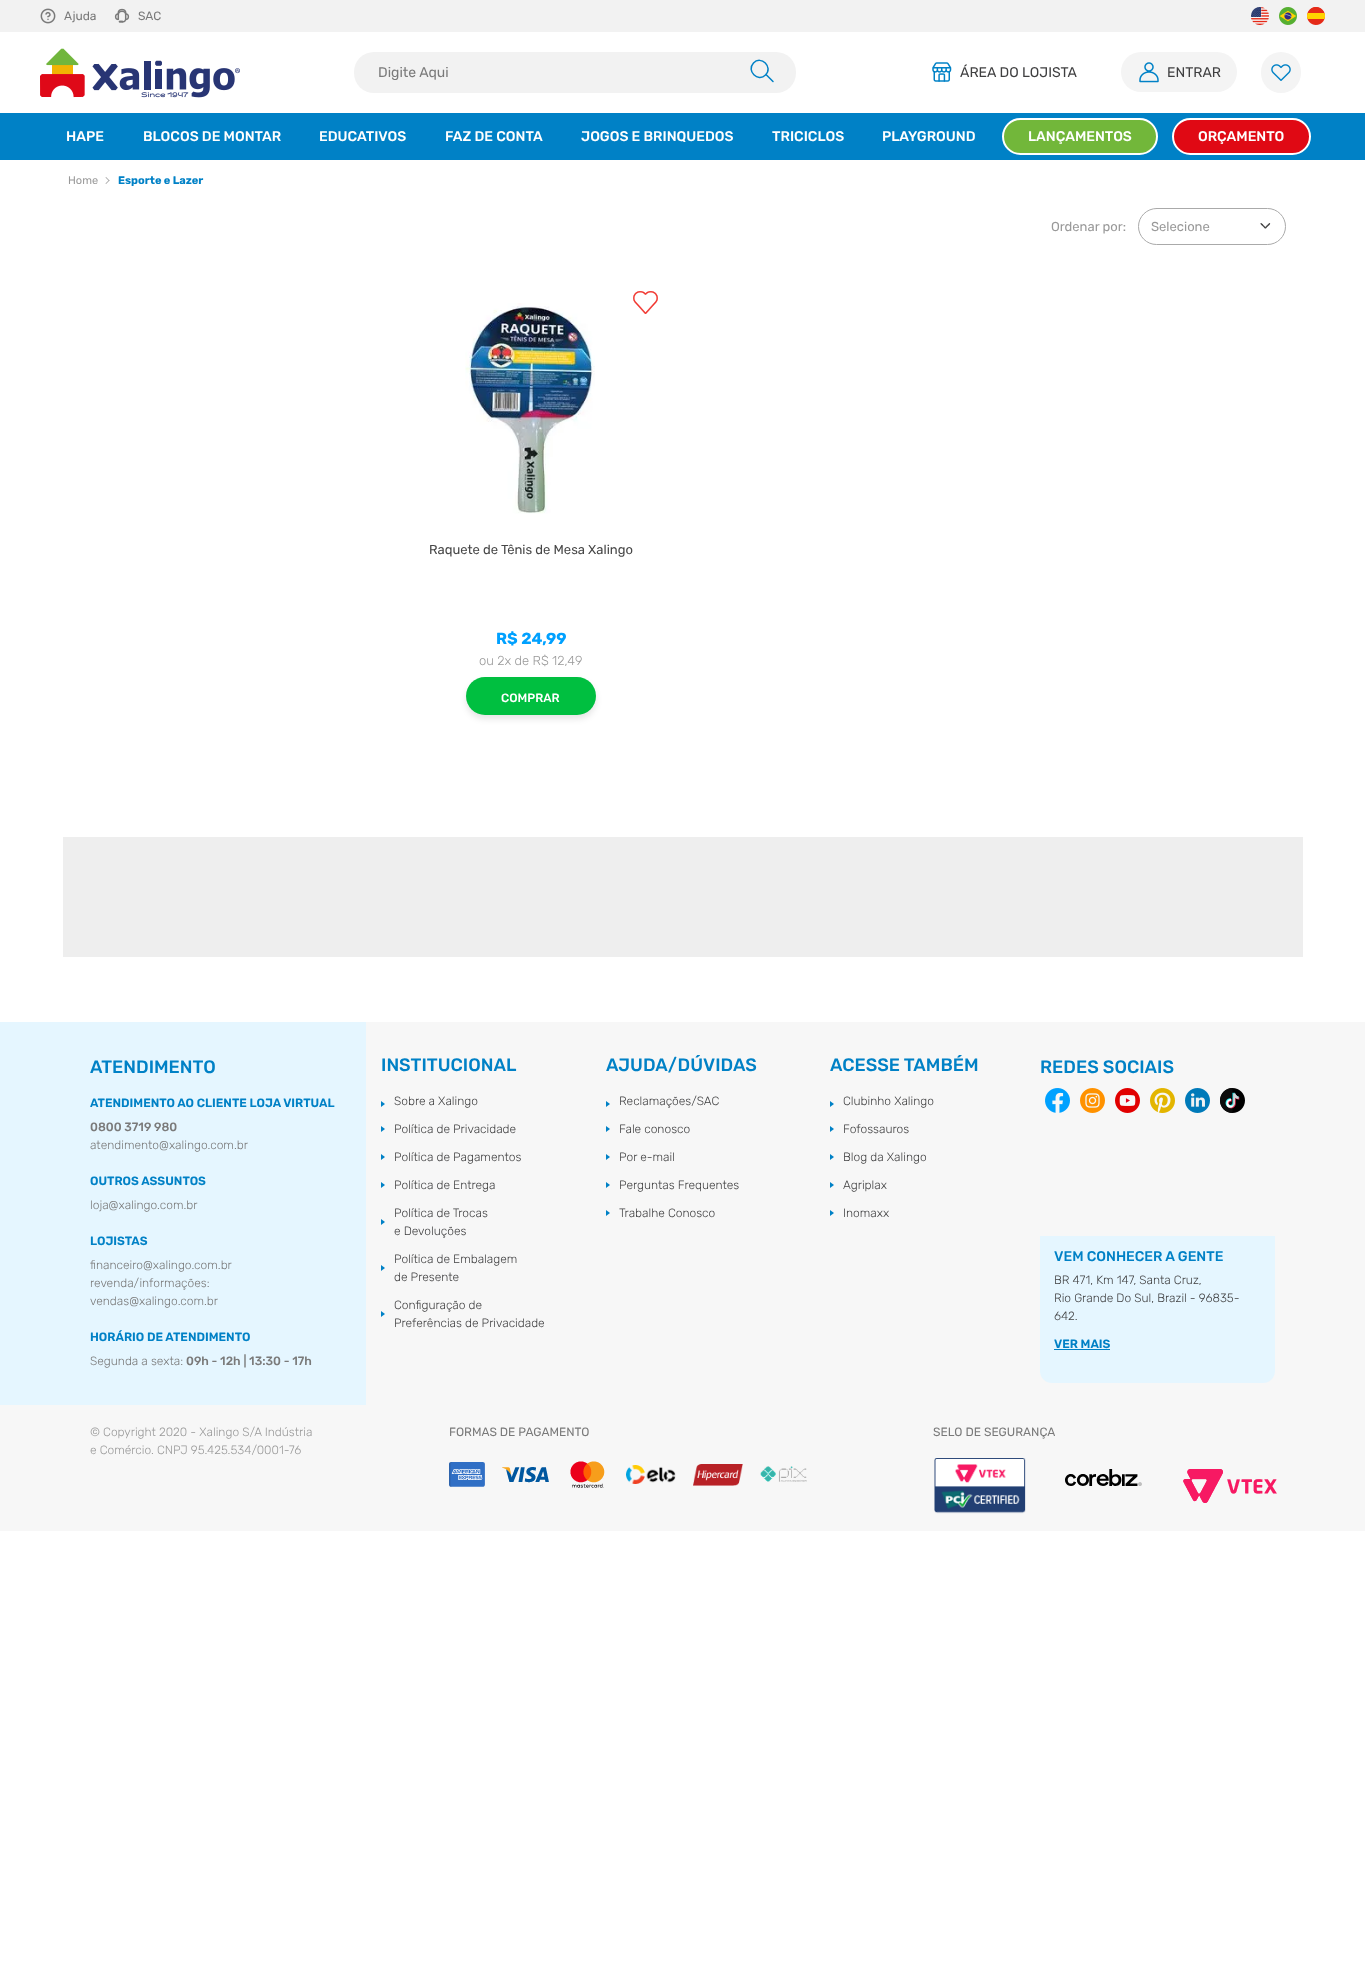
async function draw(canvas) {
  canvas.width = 1365;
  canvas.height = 1987;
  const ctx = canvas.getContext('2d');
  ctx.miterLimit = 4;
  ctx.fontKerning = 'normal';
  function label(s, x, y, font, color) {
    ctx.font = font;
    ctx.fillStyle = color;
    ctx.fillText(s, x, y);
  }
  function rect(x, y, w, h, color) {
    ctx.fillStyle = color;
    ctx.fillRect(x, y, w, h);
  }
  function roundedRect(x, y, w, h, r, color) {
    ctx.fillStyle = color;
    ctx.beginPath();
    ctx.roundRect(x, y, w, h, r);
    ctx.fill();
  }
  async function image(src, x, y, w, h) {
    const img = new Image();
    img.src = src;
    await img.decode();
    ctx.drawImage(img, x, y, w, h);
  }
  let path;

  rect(0, 0, 1365, 1987, '#fff');
  rect(0, 0, 1365, 32, '#f2f2f2');
  await image('assets/img1.png', 40, 8, 16, 16);
  label('Ajuda', 64, 20, '12px Rubik', '#7a7a7a');
  await image('assets/img2.png', 114, 8, 16, 15);
  label('SAC', 138, 20, '12px Rubik', '#7a7a7a');
  await image('assets/img3.png', 1251, 7, 18, 18);
  await image('assets/img4.png', 1279, 7, 18, 18);
  await image('assets/img5.png', 1307, 7, 18, 18);
  await image('assets/img6.png', 40, 48, 200, 50);
  roundedRect(354, 52, 442, 41, 20, '#f2f2f2');
  label('Digite Aqui', 378, 77, '14px Rubik', '#7a7a7a');
  path = new Path2D('M765.5 75C773.5 67 761 55 753.5 63C746 71 758 82.5 765.5 75ZM766 74.5L773 81.5');
  ctx.strokeStyle = '#0081c6';
  ctx.lineWidth = 1.5;
  ctx.lineCap = 'round';
  ctx.lineJoin = 'round';
  ctx.stroke(path);
  await image('assets/img7.png', 932, 62, 20, 20);
  label('ÁREA DO LOJISTA', 960, 77, '14px Rubik', '#3f3f40');
  roundedRect(1121, 52, 116, 40, 20, '#f4f4f4');
  await image('assets/img8.png', 1139, 62, 20, 21);
  label('ENTRAR', 1167, 77, '14px Rubik', '#3f3f40');
  roundedRect(1261, 52, 40, 41, 20, '#f4f4f4');
  await image('assets/img9.png', 1271, 64, 20, 17);
  rect(0, 113, 1365, 47, '#0081c6');
  label('HAPE', 66, 141, '500 14px Rubik', '#fff');
  label('BLOCOS DE MONTAR', 143, 141, '500 14px Rubik', '#fff');
  label('EDUCATIVOS', 319, 141, '500 14px Rubik', '#fff');
  label('FAZ DE CONTA', 445, 141, '500 14px Rubik', '#fff');
  label('JOGOS E BRINQUEDOS', 581, 141, '500 14px Rubik', '#fff');
  label('TRICICLOS', 772, 141, '500 14px Rubik', '#fff');
  label('PLAYGROUND', 882, 141, '500 14px Rubik', '#fff');
  ctx.fillStyle = '#72b73a';
  ctx.beginPath();
  ctx.roundRect(1003, 119, 154, 35, 17.5);
  ctx.fill();
  ctx.strokeStyle = '#fff';
  ctx.lineWidth = 2;
  ctx.lineJoin = 'miter';
  ctx.stroke();
  label('LANÇAMENTOS', 1028, 141, '500 14px Rubik', '#fff');
  ctx.fillStyle = '#e00914';
  ctx.beginPath();
  ctx.roundRect(1173, 119, 137, 35, 17.5);
  ctx.fill();
  ctx.stroke();
  label('ORÇAMENTO', 1198, 141, '500 14px Rubik', '#fff');
  label('Home', 68, 184, '11px Rubik', '#999');
  path = new Path2D('M106 177L109.5 180.5L109 181L105.5 177.5Z');
  ctx.fill(path);
  path = new Path2D('M109 180L109.5 180.5L106 184L105.5 183.5Z');
  ctx.fill(path);
  label('Esporte e Lazer', 118, 184, 'bold 11px Rubik', '#0081c6');
  label('Ordenar por:', 1051, 231, '13px Rubik', '#999');
  ctx.beginPath();
  ctx.roundRect(1138.5, 208.5, 147, 36, 18);
  ctx.strokeStyle = '#aaa';
  ctx.lineWidth = 1;
  ctx.stroke();
  label('Selecione', 1151, 231, '13px Rubik', '#999');
  await image('assets/img10.png', 1260, 223, 11, 6);
  await image('assets/img11.png', 465, 303, 130, 211);
  await image('assets/img12.png', 633, 291, 25, 23);
  label('Raquete de Tênis de Mesa Xalingo', 429, 554, '13px Rubik', '#474747');
  label('R$ 24,99', 496, 644, 'bold 16px Rubik', '#00a1ff');
  label('ou 2x de R$ 12,49', 479, 665, '300 13px Rubik', '#999');
  ctx.fillStyle = '#0000001a';
  ctx.filter = 'blur(3px)';
  ctx.beginPath();
  ctx.roundRect(466, 681, 130, 38, 19);
  ctx.fill();
  ctx.filter = 'none';
  roundedRect(466, 677, 130, 38, 19, '#00bf40');
  label('COMPRAR', 501, 702, '500 12px Rubik', '#fff');
  rect(63, 837, 1240, 120, '#eee');
  rect(0, 1022, 1365, 509, '#f7f7f7');
  rect(0, 1022, 366, 383, '#e5f6ff');
  label('ATENDIMENTO', 90, 1073, '500 18px Rubik', '#0081c6');
  label('ATENDIMENTO AO CLIENTE LOJA VIRTUAL', 90, 1107, '600 12px Rubik', '#0081c6');
  label('0800 3719 980', 90, 1131, '500 12px Rubik', '#7a7a7a');
  label('atendimento@xalingo.com.br', 90, 1149, '300 12px Rubik', '#7a7a7a');
  label('OUTROS ASSUNTOS', 90, 1185, '600 12px Rubik', '#0081c6');
  label('loja@xalingo.com.br', 90, 1209, '300 12px Rubik', '#7a7a7a');
  label('LOJISTAS', 90, 1245, '600 12px Rubik', '#0081c6');
  label('financeiro@xalingo.com.br', 90, 1269, '300 12px Rubik', '#7a7a7a');
  label('revenda/informações:', 90, 1287, '300 12px Rubik', '#7a7a7a');
  label('vendas@xalingo.com.br', 90, 1305, '300 12px Rubik', '#7a7a7a');
  label('HORÁRIO DE ATENDIMENTO', 90, 1341, '600 12px Rubik', '#0081c6');
  label('Segunda a sexta:', 90, 1365, '300 12px Rubik', '#7a7a7a');
  label('09h - 12h | 13:30 - 17h', 186, 1365, '500 12px Rubik', '#7a7a7a');
  label('INSTITUCIONAL', 381, 1071, '500 18px Rubik', '#0081c6');
  path = new Path2D('M381 1107V1101L385 1104Z');
  ctx.fill(path);
  label('Sobre a Xalingo', 394, 1105, '300 12px Rubik', '#3f3f40');
  ctx.fillStyle = '#0081c6';
  path = new Path2D('M381 1132V1126L385 1129Z');
  ctx.fill(path);
  label('Política de Privacidade', 394, 1133, '300 12px Rubik', '#3f3f40');
  ctx.fillStyle = '#0081c6';
  path = new Path2D('M381 1160V1154L385 1157Z');
  ctx.fill(path);
  label('Política de Pagamentos', 394, 1161, '300 12px Rubik', '#3f3f40');
  ctx.fillStyle = '#0081c6';
  path = new Path2D('M381 1188V1182L385 1185Z');
  ctx.fill(path);
  label('Política de Entrega', 394, 1189, '300 12px Rubik', '#3f3f40');
  label('Política de Trocas', 394, 1217, '300 12px Rubik', '#3f3f40');
  ctx.fillStyle = '#0081c6';
  path = new Path2D('M381 1225V1219L385 1222Z');
  ctx.fill(path);
  label('e Devoluções', 394, 1235, '300 12px Rubik', '#3f3f40');
  label('Política de Embalagem', 394, 1263, '300 12px Rubik', '#3f3f40');
  ctx.fillStyle = '#0081c6';
  path = new Path2D('M381 1271V1265L385 1268Z');
  ctx.fill(path);
  label('de Presente', 394, 1281, '300 12px Rubik', '#3f3f40');
  label('Configuração de', 394, 1309, '300 12px Rubik', '#3f3f40');
  ctx.fillStyle = '#0081c6';
  path = new Path2D('M381 1317V1311L385 1314Z');
  ctx.fill(path);
  label('Preferências de Privacidade', 394, 1327, '300 12px Rubik', '#3f3f40');
  label('AJUDA/DÚVIDAS', 606, 1071, '500 18px Rubik', '#0081c6');
  path = new Path2D('M606 1107V1101L610 1104Z');
  ctx.fill(path);
  label('Reclamações/SAC', 619, 1105, '300 12px Rubik', '#3f3f40');
  ctx.fillStyle = '#0081c6';
  path = new Path2D('M606 1132V1126L610 1129Z');
  ctx.fill(path);
  label('Fale conosco', 619, 1133, '300 12px Rubik', '#3f3f40');
  ctx.fillStyle = '#0081c6';
  path = new Path2D('M606 1160V1154L610 1157Z');
  ctx.fill(path);
  label('Por e-mail', 619, 1161, '300 12px Rubik', '#3f3f40');
  ctx.fillStyle = '#0081c6';
  path = new Path2D('M606 1188V1182L610 1185Z');
  ctx.fill(path);
  label('Perguntas Frequentes', 619, 1189, '300 12px Rubik', '#3f3f40');
  ctx.fillStyle = '#0081c6';
  path = new Path2D('M606 1216V1210L610 1213Z');
  ctx.fill(path);
  label('Trabalhe Conosco', 619, 1217, '300 12px Rubik', '#3f3f40');
  label('ACESSE TAMBÉM', 830, 1071, '500 18px Rubik', '#0081c6');
  path = new Path2D('M830 1107V1101L834 1104Z');
  ctx.fill(path);
  label('Clubinho Xalingo', 843, 1105, '300 12px Rubik', '#3f3f40');
  ctx.fillStyle = '#0081c6';
  path = new Path2D('M830 1132V1126L834 1129Z');
  ctx.fill(path);
  label('Fofossauros', 843, 1133, '300 12px Rubik', '#3f3f40');
  ctx.fillStyle = '#0081c6';
  path = new Path2D('M830 1160V1154L834 1157Z');
  ctx.fill(path);
  label('Blog da Xalingo', 843, 1161, '300 12px Rubik', '#3f3f40');
  ctx.fillStyle = '#0081c6';
  path = new Path2D('M830 1188V1182L834 1185Z');
  ctx.fill(path);
  label('Agriplax', 843, 1189, '300 12px Rubik', '#3f3f40');
  ctx.fillStyle = '#0081c6';
  path = new Path2D('M830 1216V1210L834 1213Z');
  ctx.fill(path);
  label('Inomaxx', 843, 1217, '300 12px Rubik', '#3f3f40');
  label('REDES SOCIAIS', 1040, 1073, '500 18px Rubik', '#0081c6');
  await image('assets/img13.png', 1045, 1088, 25, 25);
  await image('assets/img14.png', 1080, 1088, 25, 25);
  await image('assets/img15.png', 1115, 1088, 25, 25);
  await image('assets/img16.png', 1150, 1088, 25, 25);
  await image('assets/img17.png', 1185, 1088, 25, 25);
  await image('assets/img18.png', 1220, 1088, 25, 25);
  ctx.fillStyle = '#e5f6ff';
  ctx.beginPath();
  ctx.roundRect(1040, 1236, 235, 147, [0, 0, 12, 12]);
  ctx.fill();
  label('VEM CONHECER A GENTE', 1054, 1261, '500 14px Rubik', '#0081c6');
  label('BR 471, Km 147, Santa Cruz,', 1054, 1284, '300 12px Rubik', '#3f3f40');
  label('Rio Grande Do Sul, Brazil - 96835-', 1054, 1302, '300 12px Rubik', '#3f3f40');
  label('642.', 1054, 1320, '300 12px Rubik', '#3f3f40');
  label('VER MAIS', 1054, 1348, '600 12px Rubik', '#0081c6');
  rect(1054, 1349, 56, 1, '#0081c6');
  label('© Copyright 2020 - Xalingo S/A Indústria', 90, 1436, '300 12px Rubik', '#999');
  label('e Comércio. CNPJ 95.425.534/0001-76', 90, 1454, '300 12px Rubik', '#999');
  label('FORMAS DE PAGAMENTO', 449, 1436, '12px Rubik', '#7a7a7a');
  await image('assets/img19.png', 449, 1462, 36, 25);
  await image('assets/img20.png', 502, 1467, 47, 16);
  await image('assets/img21.png', 570, 1461, 35, 27);
  await image('assets/img22.png', 626, 1465, 50, 19);
  await image('assets/img23.png', 693, 1464, 50, 22);
  await image('assets/img24.png', 760, 1466, 47, 16);
  label('SELO DE SEGURANÇA', 933, 1436, '12px Rubik', '#7a7a7a');
  await image('assets/img25.png', 934, 1458, 92, 56);
  await image('assets/img26.png', 1065, 1469, 77, 17);
  await image('assets/img27.png', 1183, 1469, 94, 34);
}

draw(document.querySelector('canvas'));
